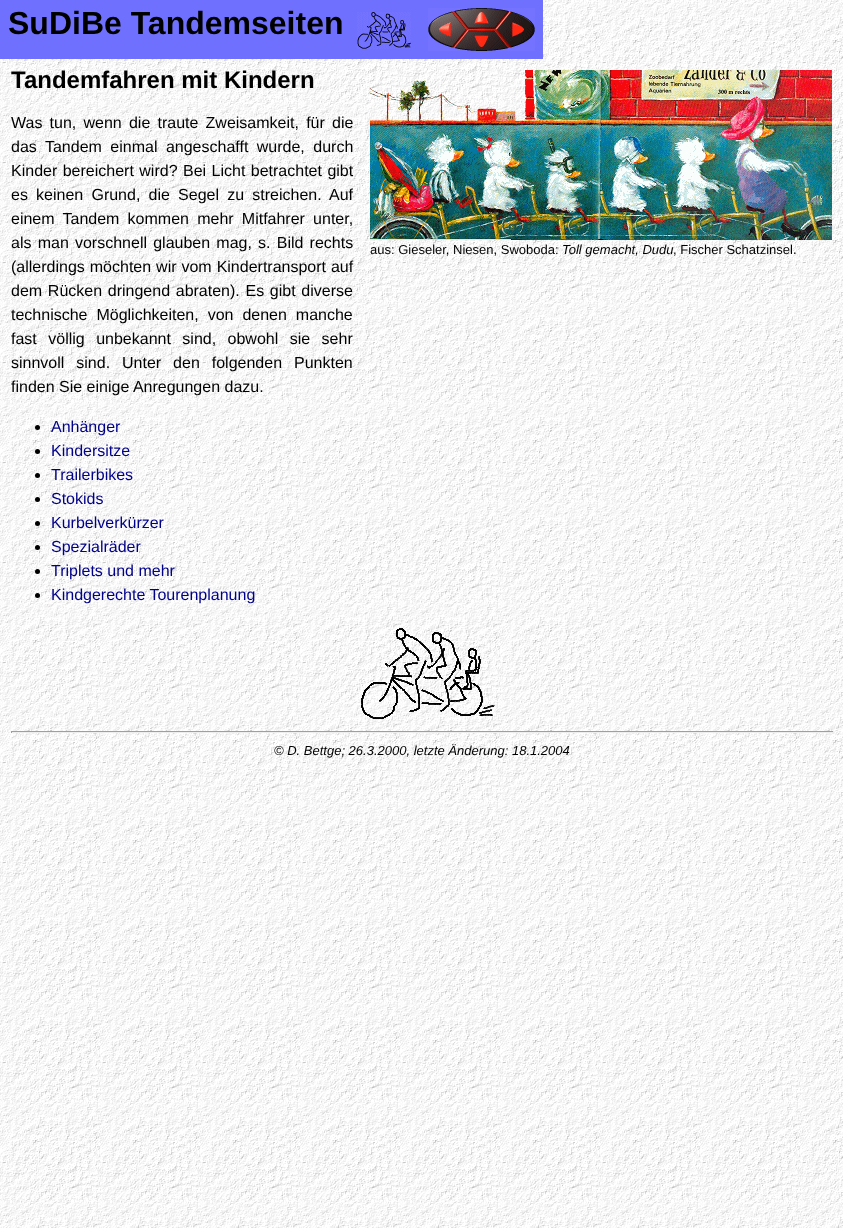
async function draw(canvas) {
  canvas.width = 843;
  canvas.height = 1228;
  const ctx = canvas.getContext('2d');
  ctx.miterLimit = 4;
  ctx.fontKerning = 'normal';
  function label(s, x, y, font, color) {
    ctx.font = font;
    ctx.fillStyle = color;
    ctx.fillText(s, x, y);
  }
  function rect(x, y, w, h, color) {
    ctx.fillStyle = color;
    ctx.fillRect(x, y, w, h);
  }
  async function image(src, x, y, w, h) {
    const img = new Image();
    img.src = src;
    await img.decode();
    ctx.drawImage(img, x, y, w, h);
  }

  rect(0, 0, 843, 1228, '#fff');
  await image('assets/img1.png', 0, 0, 843, 1228);
  rect(0, 0, 543, 59, '#7070ff');
  label('SuDiBe Tandemseiten', 8, 34, 'bold 32px Liberation Sans', '#000');
  await image('assets/img2.png', 357, 12, 54, 37);
  await image('assets/img3.png', 428, 8, 107, 43);
  label('Tandemfahren mit Kindern', 11, 88, 'bold 24px Liberation Sans', '#000');
  ctx.wordSpacing = '2.75px';
  label('Was tun, wenn die traute Zweisamkeit, für die', 11, 128, '16px Liberation Sans', '#000');
  ctx.wordSpacing = '4px';
  label('das Tandem einmal angeschafft wurde, durch', 11, 152, '16px Liberation Sans', '#000');
  ctx.wordSpacing = '1px';
  label('Kinder bereichert wird? Bei Licht betrachtet gibt', 11, 176, '16px Liberation Sans', '#000');
  ctx.wordSpacing = '3.75px';
  label('es keinen Grund, die Segel zu streichen. Auf', 11, 200, '16px Liberation Sans', '#000');
  label('einem Tandem kommen mehr Mitfahrer unter,', 11, 224, '16px Liberation Sans', '#000');
  ctx.wordSpacing = '1.75px';
  label('als man vorschnell glauben mag, s. Bild rechts', 11, 248, '16px Liberation Sans', '#000');
  ctx.wordSpacing = '0.5px';
  label('(allerdings möchten wir vom Kindertransport auf', 11, 272, '16px Liberation Sans', '#000');
  ctx.wordSpacing = '1.25px';
  label('dem Rücken dringend abraten). Es gibt diverse', 11, 296, '16px Liberation Sans', '#000');
  ctx.wordSpacing = '4.5px';
  label('technische Möglichkeiten, von denen manche', 11, 320, '16px Liberation Sans', '#000');
  ctx.wordSpacing = '7px';
  label('fast völlig unbekannt sind, obwohl sie sehr', 11, 344, '16px Liberation Sans', '#000');
  ctx.wordSpacing = '7.5px';
  label('sinnvoll sind. Unter den folgenden Punkten', 11, 368, '16px Liberation Sans', '#000');
  ctx.wordSpacing = '0px';
  label('finden Sie einige Anregungen dazu.', 11, 392, '16px Liberation Sans', '#000');
  await image('assets/img4.png', 370, 70, 462, 170);
  label('aus: Gieseler, Niesen, Swoboda:', 370, 254, '13px Liberation Sans', '#000');
  label('Toll gemacht, Dudu', 562, 254, 'italic 13px Liberation Sans', '#000');
  label(', Fischer Schatzinsel.', 673, 254, '13px Liberation Sans', '#000');
  ctx.beginPath();
  ctx.arc(37.5, 427.5, 2.5, 0, 2 * Math.PI);
  ctx.fill();
  label('Anhänger', 51, 432, '16px Liberation Sans', '#008');
  ctx.fillStyle = '#000';
  ctx.beginPath();
  ctx.arc(37.5, 451.5, 2.5, 0, 2 * Math.PI);
  ctx.fill();
  label('Kindersitze', 51, 456, '16px Liberation Sans', '#008');
  ctx.fillStyle = '#000';
  ctx.beginPath();
  ctx.arc(37.5, 475.5, 2.5, 0, 2 * Math.PI);
  ctx.fill();
  label('Trailerbikes', 51, 480, '16px Liberation Sans', '#008');
  ctx.fillStyle = '#000';
  ctx.beginPath();
  ctx.arc(37.5, 499.5, 2.5, 0, 2 * Math.PI);
  ctx.fill();
  label('Stokids', 51, 504, '16px Liberation Sans', '#008');
  ctx.fillStyle = '#000';
  ctx.beginPath();
  ctx.arc(37.5, 523.5, 2.5, 0, 2 * Math.PI);
  ctx.fill();
  label('Kurbelverkürzer', 51, 528, '16px Liberation Sans', '#008');
  ctx.fillStyle = '#000';
  ctx.beginPath();
  ctx.arc(37.5, 547.5, 2.5, 0, 2 * Math.PI);
  ctx.fill();
  label('Spezialräder', 51, 552, '16px Liberation Sans', '#008');
  ctx.fillStyle = '#000';
  ctx.beginPath();
  ctx.arc(37.5, 571.5, 2.5, 0, 2 * Math.PI);
  ctx.fill();
  label('Triplets und mehr', 51, 576, '16px Liberation Sans', '#008');
  ctx.fillStyle = '#000';
  ctx.beginPath();
  ctx.arc(37.5, 595.5, 2.5, 0, 2 * Math.PI);
  ctx.fill();
  label('Kindgerechte Tourenplanung', 51, 600, '16px Liberation Sans', '#008');
  await image('assets/img5.png', 361, 628, 134, 91);
  rect(11, 731, 823, 1, '#9f9f9f');
  rect(833, 731, 1, 2, '#eee');
  rect(11, 732, 823, 1, '#eee');
  rect(11, 731, 1, 2, '#9f9f9f');
  label('© D. Bettge; 26.3.2000, letzte Änderung: 18.1.2004', 274, 755, 'italic 13px Liberation Sans', '#000');
}

draw(document.querySelector('canvas'));
